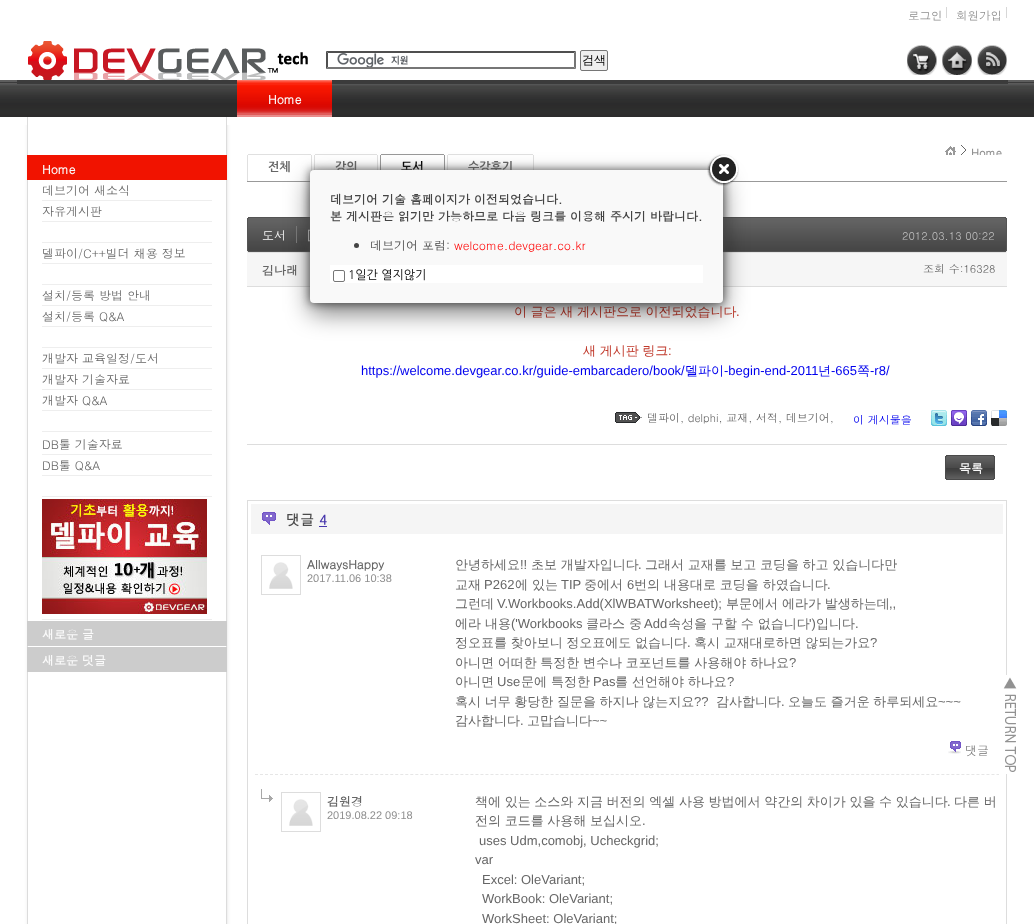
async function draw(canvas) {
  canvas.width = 1034;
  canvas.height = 924;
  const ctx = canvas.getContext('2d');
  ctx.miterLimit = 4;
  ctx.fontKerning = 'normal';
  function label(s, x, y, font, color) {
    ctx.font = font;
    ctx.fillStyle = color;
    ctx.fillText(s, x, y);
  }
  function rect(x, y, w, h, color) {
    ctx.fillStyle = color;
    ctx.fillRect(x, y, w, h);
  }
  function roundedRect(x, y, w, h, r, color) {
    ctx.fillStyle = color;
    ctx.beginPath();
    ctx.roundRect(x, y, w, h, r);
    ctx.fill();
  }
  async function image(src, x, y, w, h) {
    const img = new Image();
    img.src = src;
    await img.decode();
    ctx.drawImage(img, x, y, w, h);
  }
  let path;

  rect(0, 0, 1034, 924, '#fff');
  await image('assets/img1.png', 0, 80, 1034, 37);
  await image('assets/img2.png', 17, 125, 220, 799);
  rect(332, 80, 676, 4, '#3b3b3b');
  await image('assets/img3.png', 17, 0, 220, 125);
  await image('assets/img4.png', 28, 41, 280, 39);
  label('로그인', 908, 20, '11.5px Dotum', '#8f8f8f');
  rect(946, 7, 1, 11, '#d7d7d7');
  label('회원가입', 956, 20, '11.5px Dotum', '#8f8f8f');
  rect(1006, 7, 1, 11, '#d7d7d7');
  await image('assets/img5.png', 337, 53, 71, 14);
  ctx.fillStyle = '#4f4f4f';
  path = new Path2D('M326 51H576L574 53H328Z');
  ctx.fill(path);
  ctx.fillStyle = '#767676';
  path = new Path2D('M576 51V69L574 67V53Z');
  ctx.fill(path);
  path = new Path2D('M576 69H326L328 67H574Z');
  ctx.fill(path);
  ctx.fillStyle = '#4f4f4f';
  path = new Path2D('M326 69V51L328 53V67Z');
  ctx.fill(path);
  ctx.fillStyle = '#efefef';
  ctx.beginPath();
  ctx.roundRect(580.5, 50.5, 27, 20, 1.5);
  ctx.fill();
  ctx.strokeStyle = '#767676';
  ctx.stroke();
  label('검색', 582, 64, '500 12px WenQuanYi Zen Hei', '#000');
  await image('assets/img6.png', 907, 45, 30, 30);
  await image('assets/img7.png', 942, 45, 30, 30);
  await image('assets/img8.png', 977, 45, 30, 30);
  await image('assets/img9.png', 237, 80, 95, 37);
  label('Home', 268, 104, 'bold 12px Dotum', '#fafafa');
  await image('assets/img10.png', 945, 146, 11, 9);
  await image('assets/img11.png', 961, 145, 5, 10);
  ctx.save();
  ctx.beginPath();
  ctx.rect(895, 125, 112, 30);
  ctx.clip();
  label('Home', 971, 157, 'bold 11px Dotum', '#8f8f8f');
  ctx.restore();
  rect(27, 155, 200, 25, '#f11300');
  label('Home', 42, 174, 'bold 12px Dotum', '#fafafa');
  rect(42, 200, 170, 1, '#eee');
  label('데브기어 새소식', 42, 195, '12px Dotum', '#666');
  rect(42, 221, 170, 1, '#eee');
  label('자유게시판', 42, 216, '12px Dotum', '#666');
  rect(42, 242, 170, 1, '#eee');
  rect(42, 263, 170, 1, '#eee');
  label('델파이/C++빌더 채용 정보', 42, 258, '12px Dotum', '#666');
  rect(42, 284, 170, 1, '#eee');
  rect(42, 305, 170, 1, '#eee');
  label('설치/등록 방법 안내', 42, 300, '12px Dotum', '#666');
  rect(42, 326, 170, 1, '#eee');
  label('설치/등록 Q&A', 42, 321, '12px Dotum', '#666');
  rect(42, 347, 170, 1, '#eee');
  rect(42, 368, 170, 1, '#eee');
  label('개발자 교육일정/도서', 42, 363, '12px Dotum', '#666');
  rect(42, 389, 170, 1, '#eee');
  label('개발자 기술자료', 42, 384, '12px Dotum', '#666');
  rect(42, 431, 170, 1, '#eee');
  label('개발자 Q&A', 42, 405, '12px Dotum', '#666');
  rect(42, 410, 170, 1, '#eee');
  rect(42, 454, 170, 1, '#eee');
  label('DB툴 기술자료', 42, 449, '12px Dotum', '#666');
  rect(42, 496, 170, 1, '#eee');
  label('DB툴 Q&A', 42, 470, '12px Dotum', '#666');
  rect(42, 475, 170, 1, '#eee');
  rect(42, 619, 170, 1, '#eee');
  await image('assets/img12.png', 42, 499, 165, 115);
  rect(27, 621, 200, 25, '#ccc');
  label('새로운 글', 42, 639, 'bold 12px Dotum', '#fafafa');
  rect(27, 647, 200, 25, '#ccc');
  label('새로운 덧글', 42, 665, 'bold 12px Dotum', '#fafafa');
  rect(247, 181, 760, 1, '#999');
  rect(311, 155, 1, 17, '#e0e0e0');
  rect(247, 155, 1, 26, '#e0e0e0');
  rect(248, 154, 63, 1, '#e0e0e0');
  label('전체', 268, 171, 'bold 12px NanumGothic', '#666');
  rect(377, 155, 1, 15, '#e0e0e0');
  rect(314, 155, 1, 15, '#e0e0e0');
  rect(315, 154, 62, 1, '#e0e0e0');
  label('강의', 335, 171, 'bold 12px NanumGothic', '#666');
  rect(444, 155, 1, 15, '#999');
  rect(380, 155, 1, 15, '#999');
  rect(381, 154, 63, 1, '#999');
  label('도서', 401, 171, 'bold 12px NanumGothic', '#000');
  rect(533, 155, 1, 15, '#e0e0e0');
  rect(447, 155, 1, 15, '#e0e0e0');
  rect(448, 154, 85, 1, '#e0e0e0');
  label('수강후기', 468, 171, 'bold 12px NanumGothic', '#666');
  await image('assets/img13.png', 247, 217, 758, 36);
  await image('assets/img14.png', 1005, 217, 2, 36);
  label('도서', 262, 240, '12px Dotum', '#fafafa');
  rect(296, 226, 1, 17, '#7e7e7e');
  label('[', 306, 240, 'bold 12px Dotum', '#fafafa');
  label('2012.03.13 00:22', 902, 240, '11px Dotum', '#bfbfbf');
  rect(247, 253, 760, 33, '#f6f6f6');
  rect(247, 286, 760, 1, '#ddd');
  label('김나래', 262, 275, 'bold 12px Dotum', '#666');
  label('조회 수:16328', 923, 273, '11px Dotum', '#666');
  ctx.wordSpacing = '-0.25px';
  label('이 글은 새 게시판으로 이전되었습니다', 514, 316, '500 13px WenQuanYi Zen Hei', '#c0392b');
  ctx.wordSpacing = '0px';
  label('.', 736, 316, '13px Liberation Sans', '#c0392b');
  ctx.wordSpacing = '-0.25px';
  label('새 게시판 링크', 583, 355, '500 13px WenQuanYi Zen Hei', '#c0392b');
  ctx.wordSpacing = '0px';
  label(':', 668, 355, '13px Liberation Sans', '#c0392b');
  label('https://welcome.devgear.co.kr/guide-embarcadero/book/', 361, 375, '13px Liberation Sans', '#00e');
  label('델파이', 685, 375, '500 13px WenQuanYi Zen Hei', '#00e');
  label('-begin-end-2011', 724, 375, '13px Liberation Sans', '#00e');
  label('년', 818, 375, '500 13px WenQuanYi Zen Hei', '#00e');
  label('-665', 831, 375, '13px Liberation Sans', '#00e');
  label('쪽', 857, 375, '500 13px WenQuanYi Zen Hei', '#00e');
  label('-r8/', 870, 375, '13px Liberation Sans', '#00e');
  await image('assets/img15.png', 615, 412, 27, 11);
  label('델파이, delphi, 교재, 서적, 데브기어,', 647, 422, '11px Dotum', '#666');
  label('이 게시물을', 853, 424, '11px Dotum', '#00e');
  await image('assets/img16.png', 931, 410, 16, 16);
  await image('assets/img17.png', 951, 410, 16, 16);
  await image('assets/img18.png', 971, 410, 16, 16);
  await image('assets/img19.png', 991, 410, 16, 16);
  rect(247, 444, 760, 1, '#ddd');
  await image('assets/img20.png', 945, 455, 48, 25);
  await image('assets/img21.png', 993, 455, 2, 25);
  label('목록', 959, 473, 'bold 12px Dotum', '#fafafa');
  ctx.strokeStyle = '#ddd';
  ctx.strokeRect(247.5, 500.5, 759, 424);
  rect(251, 504, 752, 30, '#f5f5f5');
  await image('assets/img22.png', 262, 512, 14, 13);
  label('댓글', 286, 525, 'bold 14px Dotum', '#4b4b4b');
  label('4', 319, 525, 'bold 14px Dotum', '#4736ac');
  rect(319, 526, 8, 1, '#4736ac');
  path = new Path2D('M255 774.5H999');
  ctx.strokeStyle = '#e6e6e6';
  ctx.setLineDash([3, 2.01]);
  ctx.stroke(path);
  await image('assets/img23.png', 269, 562, 24, 27);
  ctx.strokeStyle = '#ddd';
  ctx.setLineDash([]);
  ctx.strokeRect(261.5, 555.5, 39, 39);
  label('AllwaysHappy', 307, 569, 'bold 12px Dotum', '#666');
  label('2017.11.06 10:38', 307, 582, '11px Liberation Sans', '#8f8f8f');
  label('안녕하세요', 455, 569, '500 13px WenQuanYi Zen Hei', '#666');
  label('!!', 520, 569, '13px Liberation Sans', '#666');
  ctx.wordSpacing = '-0.25px';
  label('초보 개발자입니다', 531, 569, '500 13px WenQuanYi Zen Hei', '#666');
  ctx.wordSpacing = '0px';
  label('.', 638, 569, '13px Liberation Sans', '#666');
  ctx.wordSpacing = '-0.25px';
  label('그래서 교재를 보고 코딩을 하고 있습니다만', 645, 569, '500 13px WenQuanYi Zen Hei', '#666');
  ctx.wordSpacing = '0px';
  label('교재', 455, 589, '500 13px WenQuanYi Zen Hei', '#666');
  label('P262', 484, 589, '13px Liberation Sans', '#666');
  label('에 있는', 515, 589, '500 13px WenQuanYi Zen Hei', '#666');
  label('TIP', 561, 589, '13px Liberation Sans', '#666');
  label('중에서', 584, 589, '500 13px WenQuanYi Zen Hei', '#666');
  label('6', 627, 589, '13px Liberation Sans', '#666');
  label('번의 내용대로 코딩을 하였습니다', 634, 589, '500 13px WenQuanYi Zen Hei', '#666');
  label('.', 827, 589, '13px Liberation Sans', '#666');
  label('그런데', 455, 608, '500 13px WenQuanYi Zen Hei', '#666');
  label('V.Workbooks.Add(XlWBATWorksheet);', 497, 608, '13px Liberation Sans', '#666');
  label('부문에서 에라가 발생하는데', 726, 608, '500 13px WenQuanYi Zen Hei', '#666');
  label(',,', 889, 608, '13px Liberation Sans', '#666');
  label('에라 내용', 455, 628, '500 13px WenQuanYi Zen Hei', '#666');
  label('(\'Workbooks', 511, 628, '13px Liberation Sans', '#666');
  label('클라스 중', 586, 628, '500 13px WenQuanYi Zen Hei', '#666');
  label('Add', 644, 628, '13px Liberation Sans', '#666');
  label('속성을 구할 수 없습니다', 668, 628, '500 13px WenQuanYi Zen Hei', '#666');
  label('\')', 809, 628, '13px Liberation Sans', '#666');
  label('입니다', 816, 628, '500 13px WenQuanYi Zen Hei', '#666');
  label('.', 855, 628, '13px Liberation Sans', '#666');
  ctx.wordSpacing = '-0.25px';
  label('정오표를 찾아보니 정오표에도 없습니다', 455, 647, '500 13px WenQuanYi Zen Hei', '#666');
  ctx.wordSpacing = '0px';
  label('.', 687, 647, '13px Liberation Sans', '#666');
  ctx.wordSpacing = '-0.25px';
  label('혹시 교재대로하면 않되는가요', 694, 647, '500 13px WenQuanYi Zen Hei', '#666');
  ctx.wordSpacing = '0px';
  label('?', 870, 647, '13px Liberation Sans', '#666');
  ctx.wordSpacing = '-0.25px';
  label('아니면 어떠한 특정한 변수나 코포넌트를 사용해야 하나요', 455, 667, '500 13px WenQuanYi Zen Hei', '#666');
  ctx.wordSpacing = '0px';
  label('?', 789, 667, '13px Liberation Sans', '#666');
  label('아니면', 455, 686, '500 13px WenQuanYi Zen Hei', '#666');
  label('Use', 497, 686, '13px Liberation Sans', '#666');
  label('문에 특정한', 521, 686, '500 13px WenQuanYi Zen Hei', '#666');
  label('Pas', 593, 686, '13px Liberation Sans', '#666');
  label('를 선언해야 하나요', 615, 686, '500 13px WenQuanYi Zen Hei', '#666');
  label('?', 727, 686, '13px Liberation Sans', '#666');
  ctx.wordSpacing = '-0.25px';
  label('혹시 너무 황당한 질문을 하지나 않는지요', 455, 706, '500 13px WenQuanYi Zen Hei', '#666');
  ctx.wordSpacing = '0px';
  label('??', 694, 706, '13px Liberation Sans', '#666');
  label('감사합니다', 716, 706, '500 13px WenQuanYi Zen Hei', '#666');
  ctx.wordSpacing = '-0.25px';
  label('오늘도 즐거운 하루되세요', 788, 706, '500 13px WenQuanYi Zen Hei', '#666');
  ctx.wordSpacing = '0px';
  label('~~~', 938, 706, '13px Liberation Sans', '#666');
  label('.', 781, 706, '13px Liberation Sans', '#666');
  label('감사합니다', 455, 725, '500 13px WenQuanYi Zen Hei', '#666');
  label('고맙습니다', 527, 725, '500 13px WenQuanYi Zen Hei', '#666');
  label('~~', 592, 725, '13px Liberation Sans', '#666');
  label('.', 520, 725, '13px Liberation Sans', '#666');
  await image('assets/img24.png', 948, 741, 13, 13);
  label('댓글', 965, 755, '12px Dotum', '#767676');
  await image('assets/img25.png', 261, 789, 12, 13);
  await image('assets/img23.png', 289, 799, 24, 27);
  ctx.strokeRect(281.5, 792.5, 39, 39);
  label('김원경', 327, 806, 'bold 12px Dotum', '#666');
  label('2019.08.22 09:18', 327, 819, '11px Liberation Sans', '#8f8f8f');
  ctx.wordSpacing = '-0.25px';
  label('책에 있는 소스와 지금 버전의 엑셀 사용 방법에서 약간의 차이가 있을 수 있습니다', 475, 806, '500 13px WenQuanYi Zen Hei', '#666');
  ctx.wordSpacing = '0px';
  label('.', 947, 806, '13px Liberation Sans', '#666');
  ctx.wordSpacing = '-0.25px';
  label('다른 버', 954, 806, '500 13px WenQuanYi Zen Hei', '#666');
  label('전의 코드를 사용해 보십시오', 475, 825, '500 13px WenQuanYi Zen Hei', '#666');
  ctx.wordSpacing = '0px';
  label('.', 642, 825, '13px Liberation Sans', '#666');
  label('uses Udm,comobj, Ucheckgrid;', 479, 845, '13px Liberation Sans', '#666');
  label('var', 475, 864, '13px Liberation Sans', '#666');
  label('Excel: OleVariant;', 482, 884, '13px Liberation Sans', '#666');
  label('WorkBook: OleVariant;', 482, 903, '13px Liberation Sans', '#666');
  label('WorkSheet: OleVariant;', 482, 923, '13px Liberation Sans', '#666');
  await image('assets/img26.png', 1003, 675, 14, 99);
  ctx.filter = 'blur(5px)';
  ctx.beginPath();
  ctx.rect(310, 170, 413, 133);
  ctx.fill();
  ctx.filter = 'none';
  ctx.fillStyle = '#00000080';
  ctx.filter = 'blur(12.5px)';
  ctx.beginPath();
  ctx.roundRect(310, 180, 413, 133, 4);
  ctx.fill();
  ctx.filter = 'none';
  roundedRect(310, 170, 413, 133, 4, '#f9f9f9');
  await image('assets/img27.png', 707, 154, 32, 32);
  label('데브기어 기술 홈페이지가 이전되었습니다.', 330, 204, 'bold 12px Dotum', '#444');
  label('본 게시판은 읽기만 가능하므로 다음 링크를 이용해 주시기 바랍니다.', 330, 221, 'bold 12px Dotum', '#444');
  ctx.beginPath();
  ctx.arc(356.5, 245.5, 2.5, 0, 2 * Math.PI);
  ctx.fill();
  label('데브기어 포럼:', 370, 250, '12px Dotum', '#444');
  label('welcome.devgear.co.kr', 454, 250, '12px Dotum', '#f00');
  rect(330, 265, 373, 18, '#fff');
  ctx.beginPath();
  ctx.roundRect(333.5, 270.5, 11, 11, 1.5);
  ctx.strokeStyle = '#767676';
  ctx.stroke();
  label('1일간 열지않기', 348, 279, '12px NanumGothic', '#000');
}

draw(document.querySelector('canvas'));
